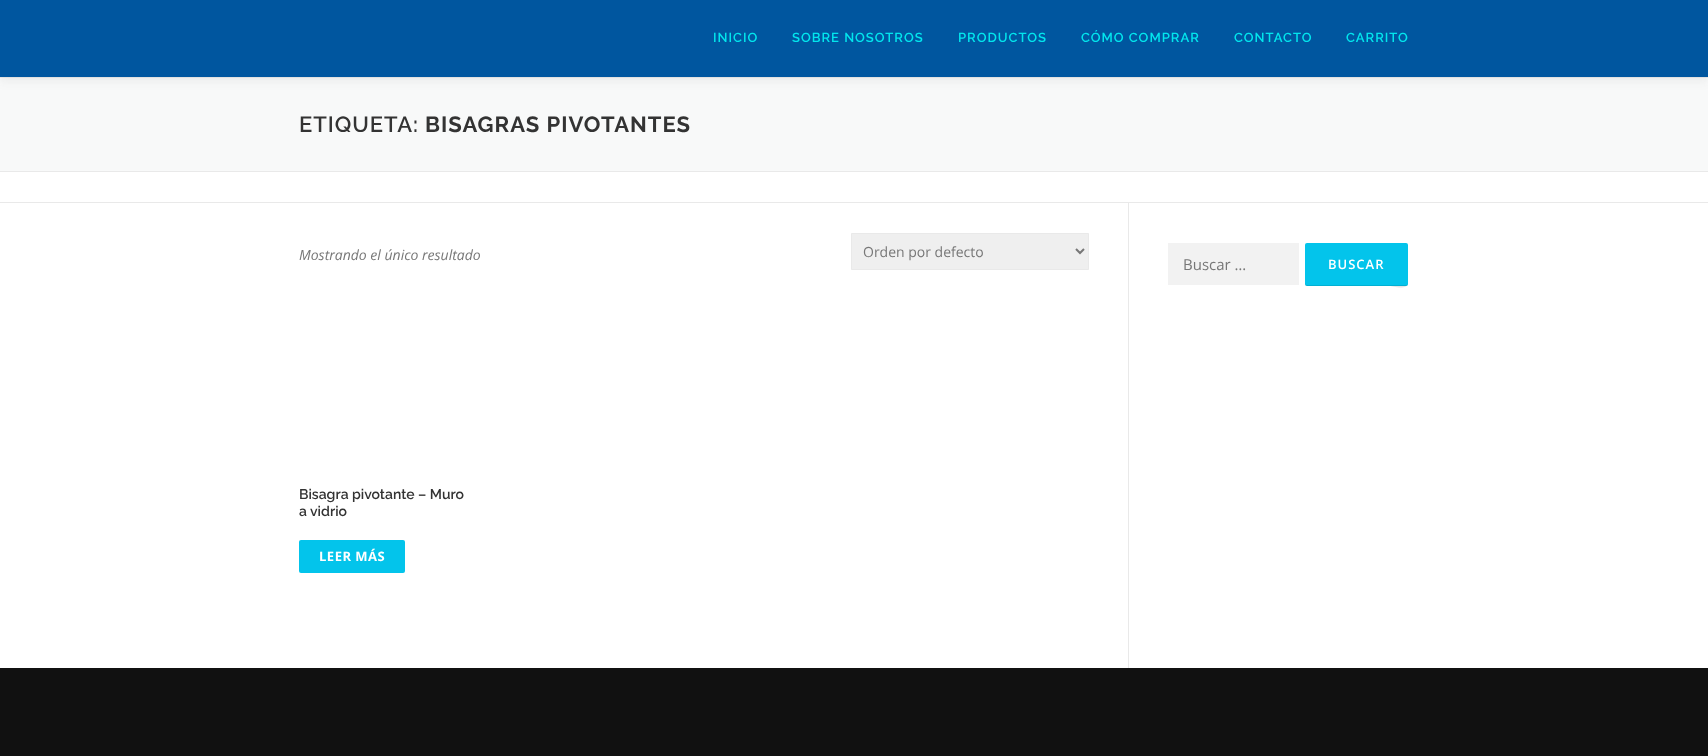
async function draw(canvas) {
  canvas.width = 1708;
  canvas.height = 756;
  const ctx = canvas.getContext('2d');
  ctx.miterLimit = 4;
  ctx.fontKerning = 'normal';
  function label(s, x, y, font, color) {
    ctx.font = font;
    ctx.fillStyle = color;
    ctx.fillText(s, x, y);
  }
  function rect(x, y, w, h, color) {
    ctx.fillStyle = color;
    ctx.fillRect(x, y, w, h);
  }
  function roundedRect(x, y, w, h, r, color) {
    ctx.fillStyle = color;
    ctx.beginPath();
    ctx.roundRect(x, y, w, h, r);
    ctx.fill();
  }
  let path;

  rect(0, 0, 1708, 756, '#fff');
  rect(0, 78, 1708, 93, '#f8f9f9');
  rect(0, 77, 1708, 1, '#e9e9e9');
  ctx.fillStyle = '#3232320f';
  ctx.filter = 'blur(5px)';
  ctx.beginPath();
  ctx.rect(0, 5, 1708, 77);
  ctx.fill();
  ctx.filter = 'none';
  rect(0, 0, 1708, 77, '#00569f');
  ctx.letterSpacing = '1px';
  label('INICIO', 713, 42, '600 13px Raleway', '#02e5ed');
  label('SOBRE NOSOTROS', 792, 42, '600 13px Raleway', '#02e5ed');
  label('PRODUCTOS', 958, 42, '600 13px Raleway', '#02e5ed');
  label('CÓMO COMPRAR', 1081, 42, '600 13px Raleway', '#02e5ed');
  label('CONTACTO', 1234, 42, '600 13px Raleway', '#02e5ed');
  label('CARRITO', 1346, 42, '600 13px Raleway', '#02e5ed');
  rect(0, 171, 1708, 1, '#e9e9e9');
  label('ETIQUETA:', 299, 132, '600 22px Raleway', '#333');
  label('BISAGRAS PIVOTANTES', 425, 132, 'bold 22px Raleway', '#333');
  rect(0, 202, 1708, 1, '#e9e9e9');
  rect(1128, 203, 1, 465, '#e9e9e9');
  ctx.letterSpacing = '0px';
  label('Mostrando el único resultado', 299, 260, 'italic 14px Open Sans', '#777');
  ctx.fillStyle = '#efefef';
  ctx.beginPath();
  ctx.rect(851.5, 233.5, 237, 36);
  ctx.fill();
  ctx.strokeStyle = '#e9e9e9';
  ctx.stroke();
  path = new Path2D('M1076 249L1080 253L1084 249');
  ctx.strokeStyle = '#777';
  ctx.lineWidth = 2;
  ctx.stroke(path);
  label('Orden por defecto', 863, 257, '14px Open Sans', '#777');
  label('Bisagra pivotante – Muro', 299, 499, '600 14px Raleway', '#333');
  label('a vidrio', 299, 516, '600 14px Raleway', '#333');
  roundedRect(299, 540, 106, 33, 2, '#03c4eb');
  ctx.letterSpacing = '0.5px';
  label('LEER MÁS', 319, 561, 'bold 13px Open Sans', '#fff');
  rect(1168, 243, 131, 42, '#f2f2f2');
  ctx.letterSpacing = '0px';
  label('Buscar …', 1183, 270, '15px Open Sans', '#777');
  roundedRect(1305, 243, 103, 43, 2, '#03c4eb');
  ctx.fillStyle = '#0000001a';
  path = new Path2D('M1305 283C1305 284 1305 286 1307 286H1390C1391 286 1408 291 1408 283C1408 284 1407 285 1406 285H1307C1306 285 1305 284 1305 283Z');
  ctx.fill(path);
  ctx.letterSpacing = '1px';
  label('BUSCAR', 1328, 269, '600 13px Open Sans', '#fff');
  rect(0, 668, 1708, 88, '#111');
}

draw(document.querySelector('canvas'));
